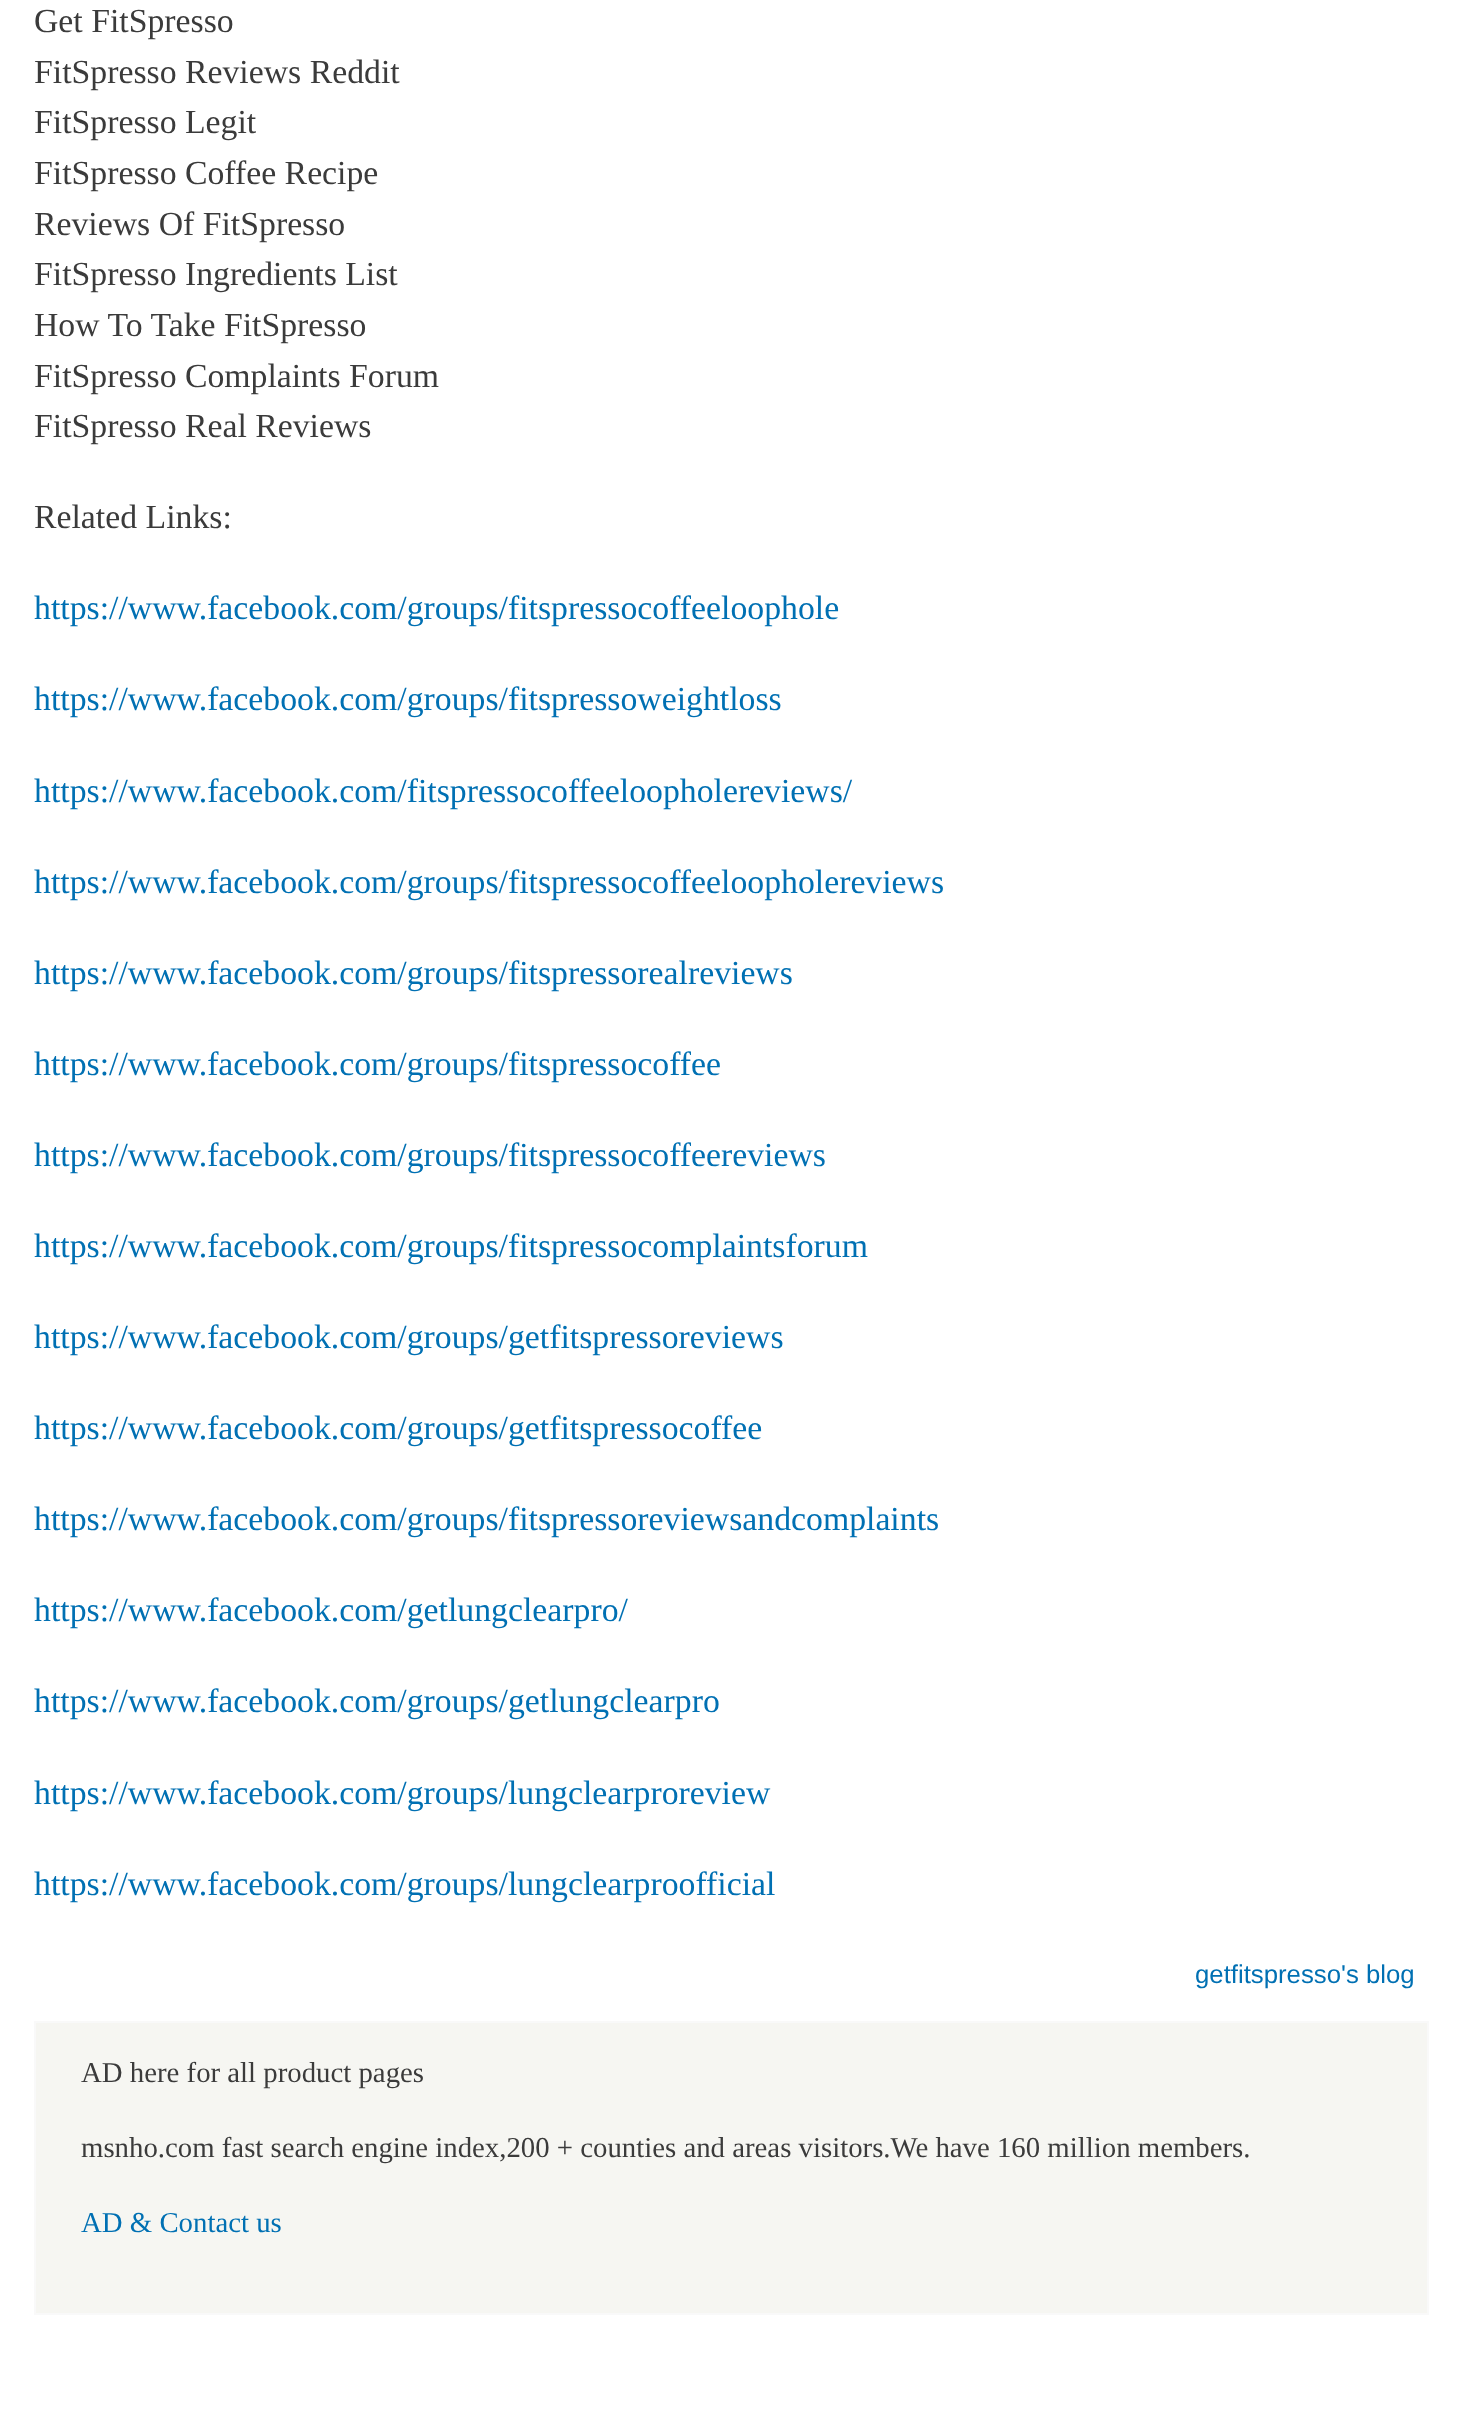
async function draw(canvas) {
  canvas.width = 1462;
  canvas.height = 2434;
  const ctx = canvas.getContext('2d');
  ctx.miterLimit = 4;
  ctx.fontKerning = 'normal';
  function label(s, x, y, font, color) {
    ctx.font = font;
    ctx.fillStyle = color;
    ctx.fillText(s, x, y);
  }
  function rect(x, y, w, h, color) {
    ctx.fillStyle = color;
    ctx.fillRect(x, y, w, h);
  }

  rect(0, 0, 1462, 2434, '#fff');
  label('Get FitSpresso', 34, 32, '33.75px Liberation Serif', '#3b3b3b');
  label('FitSpresso Reviews Reddit', 34, 83, '33.75px Liberation Serif', '#3b3b3b');
  label('FitSpresso Legit', 34, 133, '33.75px Liberation Serif', '#3b3b3b');
  label('FitSpresso Coffee Recipe', 34, 184, '33.75px Liberation Serif', '#3b3b3b');
  label('Reviews Of FitSpresso', 34, 235, '33.75px Liberation Serif', '#3b3b3b');
  label('FitSpresso Ingredients List', 34, 285, '33.75px Liberation Serif', '#3b3b3b');
  label('How To Take FitSpresso', 34, 336, '33.75px Liberation Serif', '#3b3b3b');
  label('FitSpresso Complaints Forum', 34, 387, '33.75px Liberation Serif', '#3b3b3b');
  label('FitSpresso Real Reviews', 34, 437, '33.75px Liberation Serif', '#3b3b3b');
  label('Related Links:', 34, 528, '33.75px Liberation Serif', '#3b3b3b');
  label('https://www.facebook.com/groups/fitspressocoffeeloophole', 34, 619, '33.75px Liberation Serif', '#0070b3');
  label('https://www.facebook.com/groups/fitspressoweightloss', 34, 710, '33.75px Liberation Serif', '#0070b3');
  label('https://www.facebook.com/fitspressocoffeeloopholereviews/', 34, 802, '33.75px Liberation Serif', '#0070b3');
  label('https://www.facebook.com/groups/fitspressocoffeeloopholereviews', 34, 893, '33.75px Liberation Serif', '#0070b3');
  label('https://www.facebook.com/groups/fitspressorealreviews', 34, 984, '33.75px Liberation Serif', '#0070b3');
  label('https://www.facebook.com/groups/fitspressocoffee', 34, 1075, '33.75px Liberation Serif', '#0070b3');
  label('https://www.facebook.com/groups/fitspressocoffeereviews', 34, 1166, '33.75px Liberation Serif', '#0070b3');
  label('https://www.facebook.com/groups/fitspressocomplaintsforum', 34, 1257, '33.75px Liberation Serif', '#0070b3');
  label('https://www.facebook.com/groups/getfitspressoreviews', 34, 1348, '33.75px Liberation Serif', '#0070b3');
  label('https://www.facebook.com/groups/getfitspressocoffee', 34, 1439, '33.75px Liberation Serif', '#0070b3');
  label('https://www.facebook.com/groups/fitspressoreviewsandcomplaints', 34, 1530, '33.75px Liberation Serif', '#0070b3');
  label('https://www.facebook.com/getlungclearpro/', 34, 1621, '33.75px Liberation Serif', '#0070b3');
  label('https://www.facebook.com/groups/getlungclearpro', 34, 1712, '33.75px Liberation Serif', '#0070b3');
  label('https://www.facebook.com/groups/lungclearproreview', 34, 1804, '33.75px Liberation Serif', '#0070b3');
  label('https://www.facebook.com/groups/lungclearproofficial', 34, 1895, '33.75px Liberation Serif', '#0070b3');
  label('getfitspresso\'s blog', 1195, 1983, '25.75px Liberation Sans', '#0070b3');
  ctx.fillStyle = '#f6f6f2';
  ctx.beginPath();
  ctx.rect(35, 2022, 1393, 292);
  ctx.fill();
  ctx.strokeStyle = '#f9f9f9';
  ctx.lineWidth = 2;
  ctx.stroke();
  label('AD here for all product pages', 81, 2082, '28.8px Liberation Serif', '#3b3b3b');
  label('msnho.com fast search engine index,200 + counties and areas visitors.We have 160 million members.', 81, 2157, '28.8px Liberation Serif', '#3b3b3b');
  label('AD & Contact us', 81, 2232, '28.8px Liberation Serif', '#0070b3');
}

draw(document.querySelector('canvas'));
